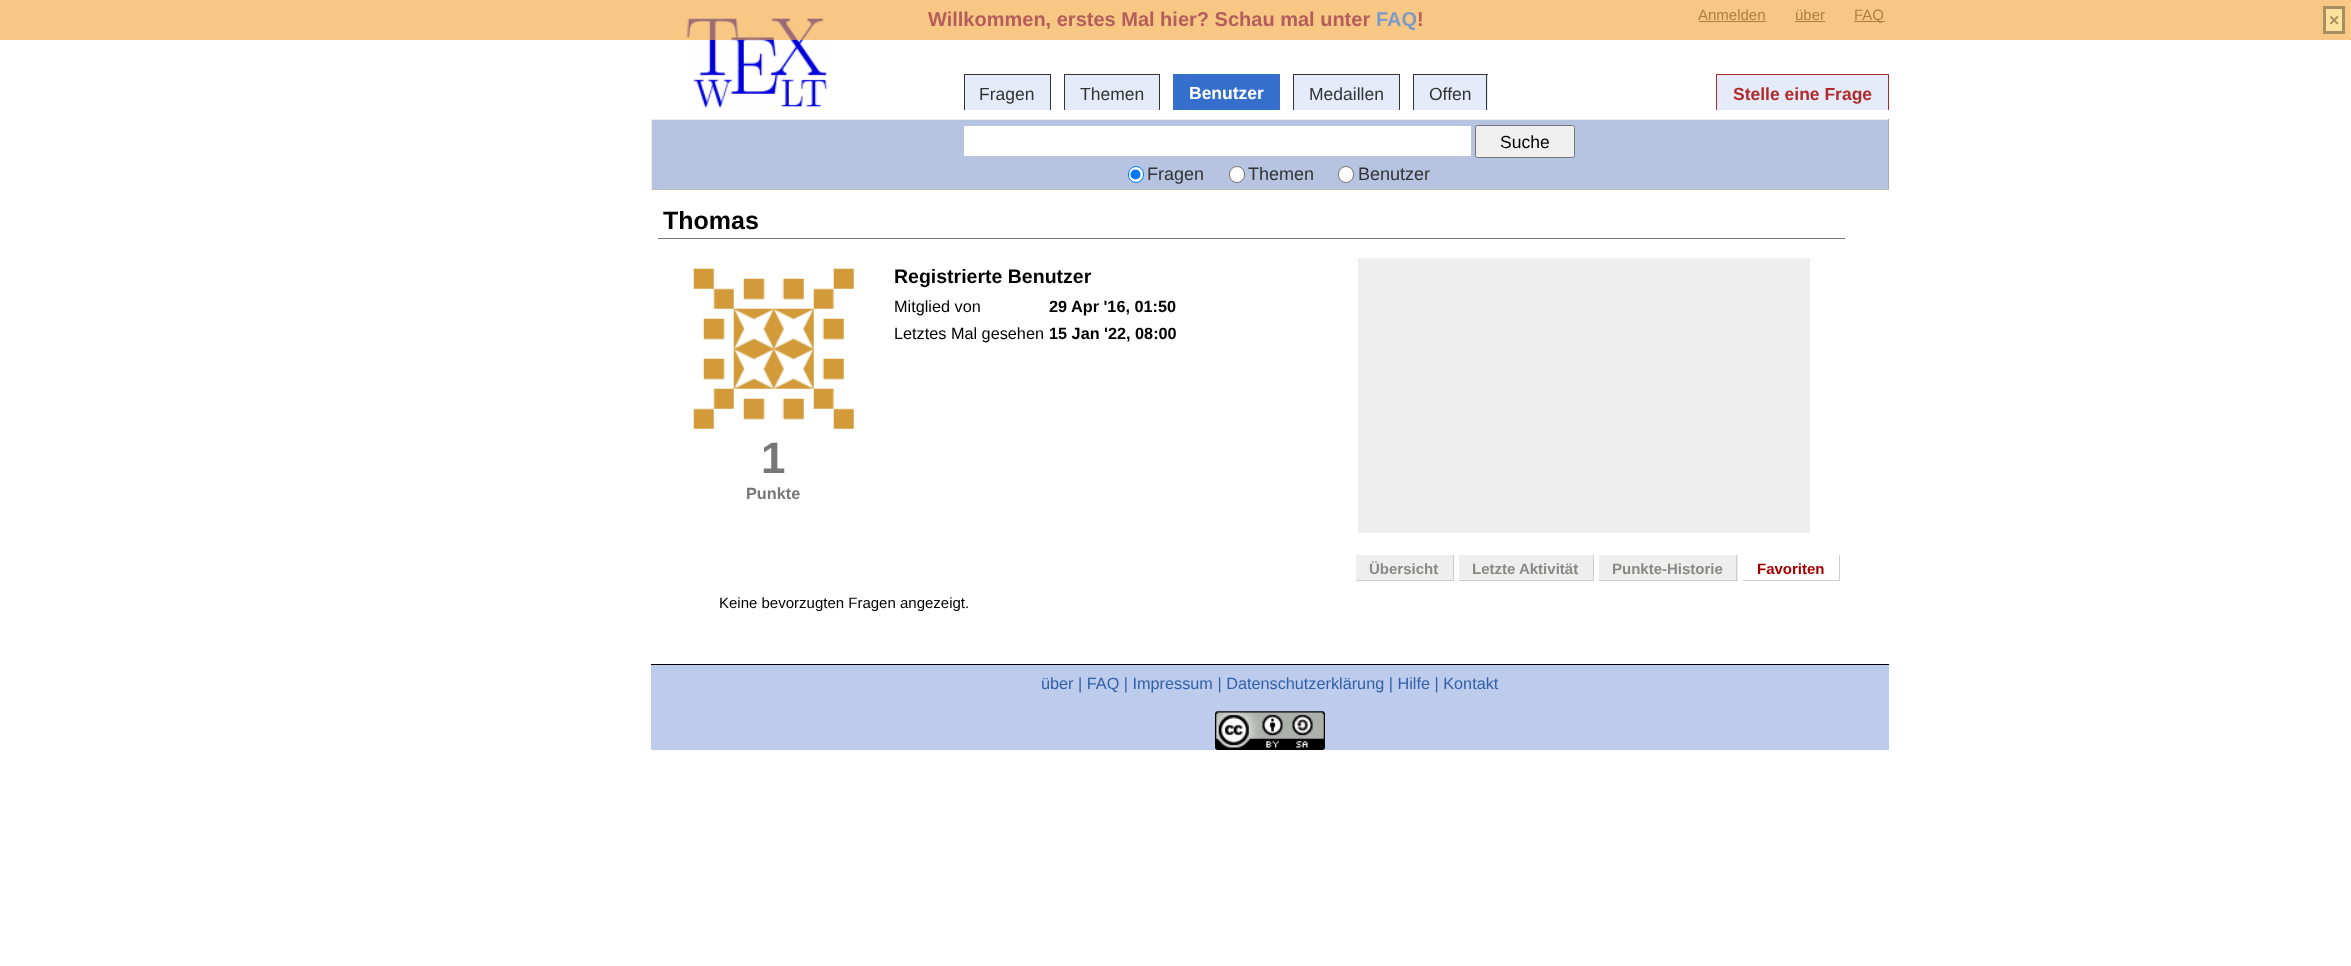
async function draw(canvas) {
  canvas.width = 2351;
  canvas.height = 966;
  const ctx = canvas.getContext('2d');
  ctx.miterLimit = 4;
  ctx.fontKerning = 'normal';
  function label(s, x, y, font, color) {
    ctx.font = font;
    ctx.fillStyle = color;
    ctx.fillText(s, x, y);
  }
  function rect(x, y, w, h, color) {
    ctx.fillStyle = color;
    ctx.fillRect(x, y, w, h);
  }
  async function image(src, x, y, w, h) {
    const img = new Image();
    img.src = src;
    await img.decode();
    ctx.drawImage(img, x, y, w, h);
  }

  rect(0, 0, 2351, 966, '#fff');
  await image('assets/img1.png', 686, 17, 141, 91);
  label('Anmelden', 1698, 20, '15px Liberation Sans', '#333');
  rect(1699, 21, 67, 1, '#333');
  label('über', 1795, 20, '15px Liberation Sans', '#333');
  rect(1795, 21, 30, 1, '#333');
  rect(1854, 21, 31, 1, '#333');
  label('FAQ', 1854, 20, '15px Liberation Sans', '#333');
  rect(965, 75, 85, 35, '#e5ebf8');
  rect(964, 74, 87, 1, '#333');
  rect(1050, 74, 1, 36, '#333');
  rect(964, 74, 1, 36, '#333');
  label('Fragen', 979, 100, '17.5px Liberation Sans', '#333');
  rect(1065, 75, 94, 35, '#e5ebf8');
  rect(1064, 74, 96, 1, '#333');
  rect(1159, 74, 1, 36, '#333');
  rect(1064, 74, 1, 36, '#333');
  label('Themen', 1080, 100, '17.5px Liberation Sans', '#333');
  rect(1173, 74, 107, 36, '#356fcb');
  label('Benutzer', 1189, 99, 'bold 17.5px Liberation Sans', '#fff');
  rect(1294, 75, 105, 35, '#e5ebf8');
  rect(1293, 74, 107, 1, '#333');
  rect(1399, 74, 1, 36, '#333');
  rect(1293, 74, 1, 36, '#333');
  label('Medaillen', 1309, 100, '17.5px Liberation Sans', '#333');
  rect(1414, 75, 74, 35, '#e5ebf8');
  rect(1413, 74, 75, 1, '#333');
  rect(1486, 74, 1, 36, '#333');
  rect(1413, 74, 1, 36, '#333');
  label('Offen', 1429, 100, '17.5px Liberation Sans', '#333');
  rect(1717, 75, 171, 35, '#e5ebf8');
  rect(1716, 74, 173, 1, '#b02b2c');
  rect(1888, 74, 1, 36, '#b02b2c');
  rect(1716, 74, 1, 36, '#b02b2c');
  label('Stelle eine Frage', 1733, 100, 'bold 17.5px Liberation Sans', '#b02b2c');
  rect(652, 120, 1236, 69, '#b6c4e2');
  rect(651, 119, 1238, 1, '#eeeeec');
  rect(1888, 119, 1, 71, '#a9aca5');
  rect(651, 189, 1238, 1, '#babdb6');
  rect(651, 119, 1, 71, '#eeeeec');
  rect(964, 126, 507, 30, '#fff');
  ctx.fillStyle = '#efefef';
  ctx.beginPath();
  ctx.roundRect(1475.5, 125.5, 99, 32, 2);
  ctx.fill();
  ctx.strokeStyle = '#767676';
  ctx.stroke();
  label('Suche', 1500, 148, '17.5px Liberation Sans', '#000');
  ctx.fillStyle = '#fff';
  ctx.beginPath();
  ctx.roundRect(1128.5, 166.5, 15, 16, 7.5);
  ctx.fill();
  ctx.strokeStyle = '#0075ff';
  ctx.stroke();
  ctx.fillStyle = '#0075ff';
  ctx.beginPath();
  ctx.arc(1135.5, 174.5, 5, 0, 2 * Math.PI);
  ctx.fill();
  label('Fragen', 1147, 180, '18px Liberation Sans', '#333');
  ctx.fillStyle = '#fff';
  ctx.beginPath();
  ctx.roundRect(1229.5, 166.5, 15, 16, 7.5);
  ctx.fill();
  ctx.strokeStyle = '#767676';
  ctx.stroke();
  label('Themen', 1248, 180, '18px Liberation Sans', '#333');
  ctx.fillStyle = '#fff';
  ctx.beginPath();
  ctx.roundRect(1338.5, 166.5, 15, 16, 7.5);
  ctx.fill();
  ctx.stroke();
  label('Benutzer', 1358, 180, '18px Liberation Sans', '#333');
  rect(658, 238, 1187, 1, '#777');
  label('Thomas', 663, 229, 'bold 25px Liberation Sans', '#000');
  label('Registrierte Benutzer', 894, 283, 'bold 19.5px Liberation Sans', '#000');
  label('Mitglied von', 894, 312, '16.25px Liberation Sans', '#000');
  label('29 Apr \'16, 01:50', 1049, 312, 'bold 16.25px Liberation Sans', '#000');
  label('Letztes Mal gesehen', 894, 339, '16.25px Liberation Sans', '#000');
  label('15 Jan \'22, 08:00', 1049, 339, 'bold 16.25px Liberation Sans', '#000');
  rect(1358, 258, 452, 275, '#eee');
  await image('assets/img2.png', 693, 268, 161, 161);
  label('1', 761, 473, 'bold 44px Liberation Sans', '#777');
  label('Punkte', 746, 499, 'bold 16.25px Liberation Sans', '#777');
  rect(1356, 555, 97, 25, '#eee');
  rect(1453, 555, 1, 26, '#ccc');
  rect(1356, 580, 98, 1, '#ccc');
  label('Übersicht', 1369, 574, 'bold 15px Liberation Sans', '#888a85');
  rect(1459, 555, 134, 25, '#eee');
  rect(1593, 555, 1, 26, '#ccc');
  rect(1459, 580, 135, 1, '#ccc');
  label('Letzte Aktivität', 1472, 574, 'bold 15px Liberation Sans', '#888a85');
  rect(1599, 555, 139, 25, '#eee');
  rect(1736, 555, 1, 26, '#ccc');
  rect(1599, 580, 139, 1, '#ccc');
  label('Punkte-Historie', 1612, 574, 'bold 15px Liberation Sans', '#888a85');
  rect(1839, 555, 1, 26, '#ccc');
  rect(1743, 580, 97, 1, '#ccc');
  label('Favoriten', 1757, 574, 'bold 15px Liberation Sans', '#a40000');
  label('Keine bevorzugten Fragen angezeigt.', 719, 608, '15px Liberation Sans', '#000');
  rect(651, 665, 1238, 85, '#bdcced');
  rect(651, 664, 1238, 1, '#000');
  label('über | FAQ | Impressum | Datenschutzerklärung | Hilfe | Kontakt', 1041, 689, '16.25px Liberation Sans', '#3060a8');
  await image('assets/img3.png', 1215, 711, 110, 39);
  rect(0, 0, 2351, 40, '#f4a83da3');
  label('Willkommen, erstes Mal hier? Schau mal unter', 928, 26, 'bold 20px Liberation Sans', '#b55d5d');
  label('FAQ', 1376, 26, 'bold 20px Liberation Sans', '#7b9ac8');
  label('!', 1417, 26, 'bold 20px Liberation Sans', '#b55d5d');
  ctx.fillStyle = '#fce29c';
  ctx.beginPath();
  ctx.rect(2324.5, 7.5, 19, 25);
  ctx.fill();
  ctx.strokeStyle = '#a69060';
  ctx.lineWidth = 3;
  ctx.stroke();
  label('×', 2329, 26, 'bold 17.5px Liberation Sans', '#a69060');
}

draw(document.querySelector('canvas'));
